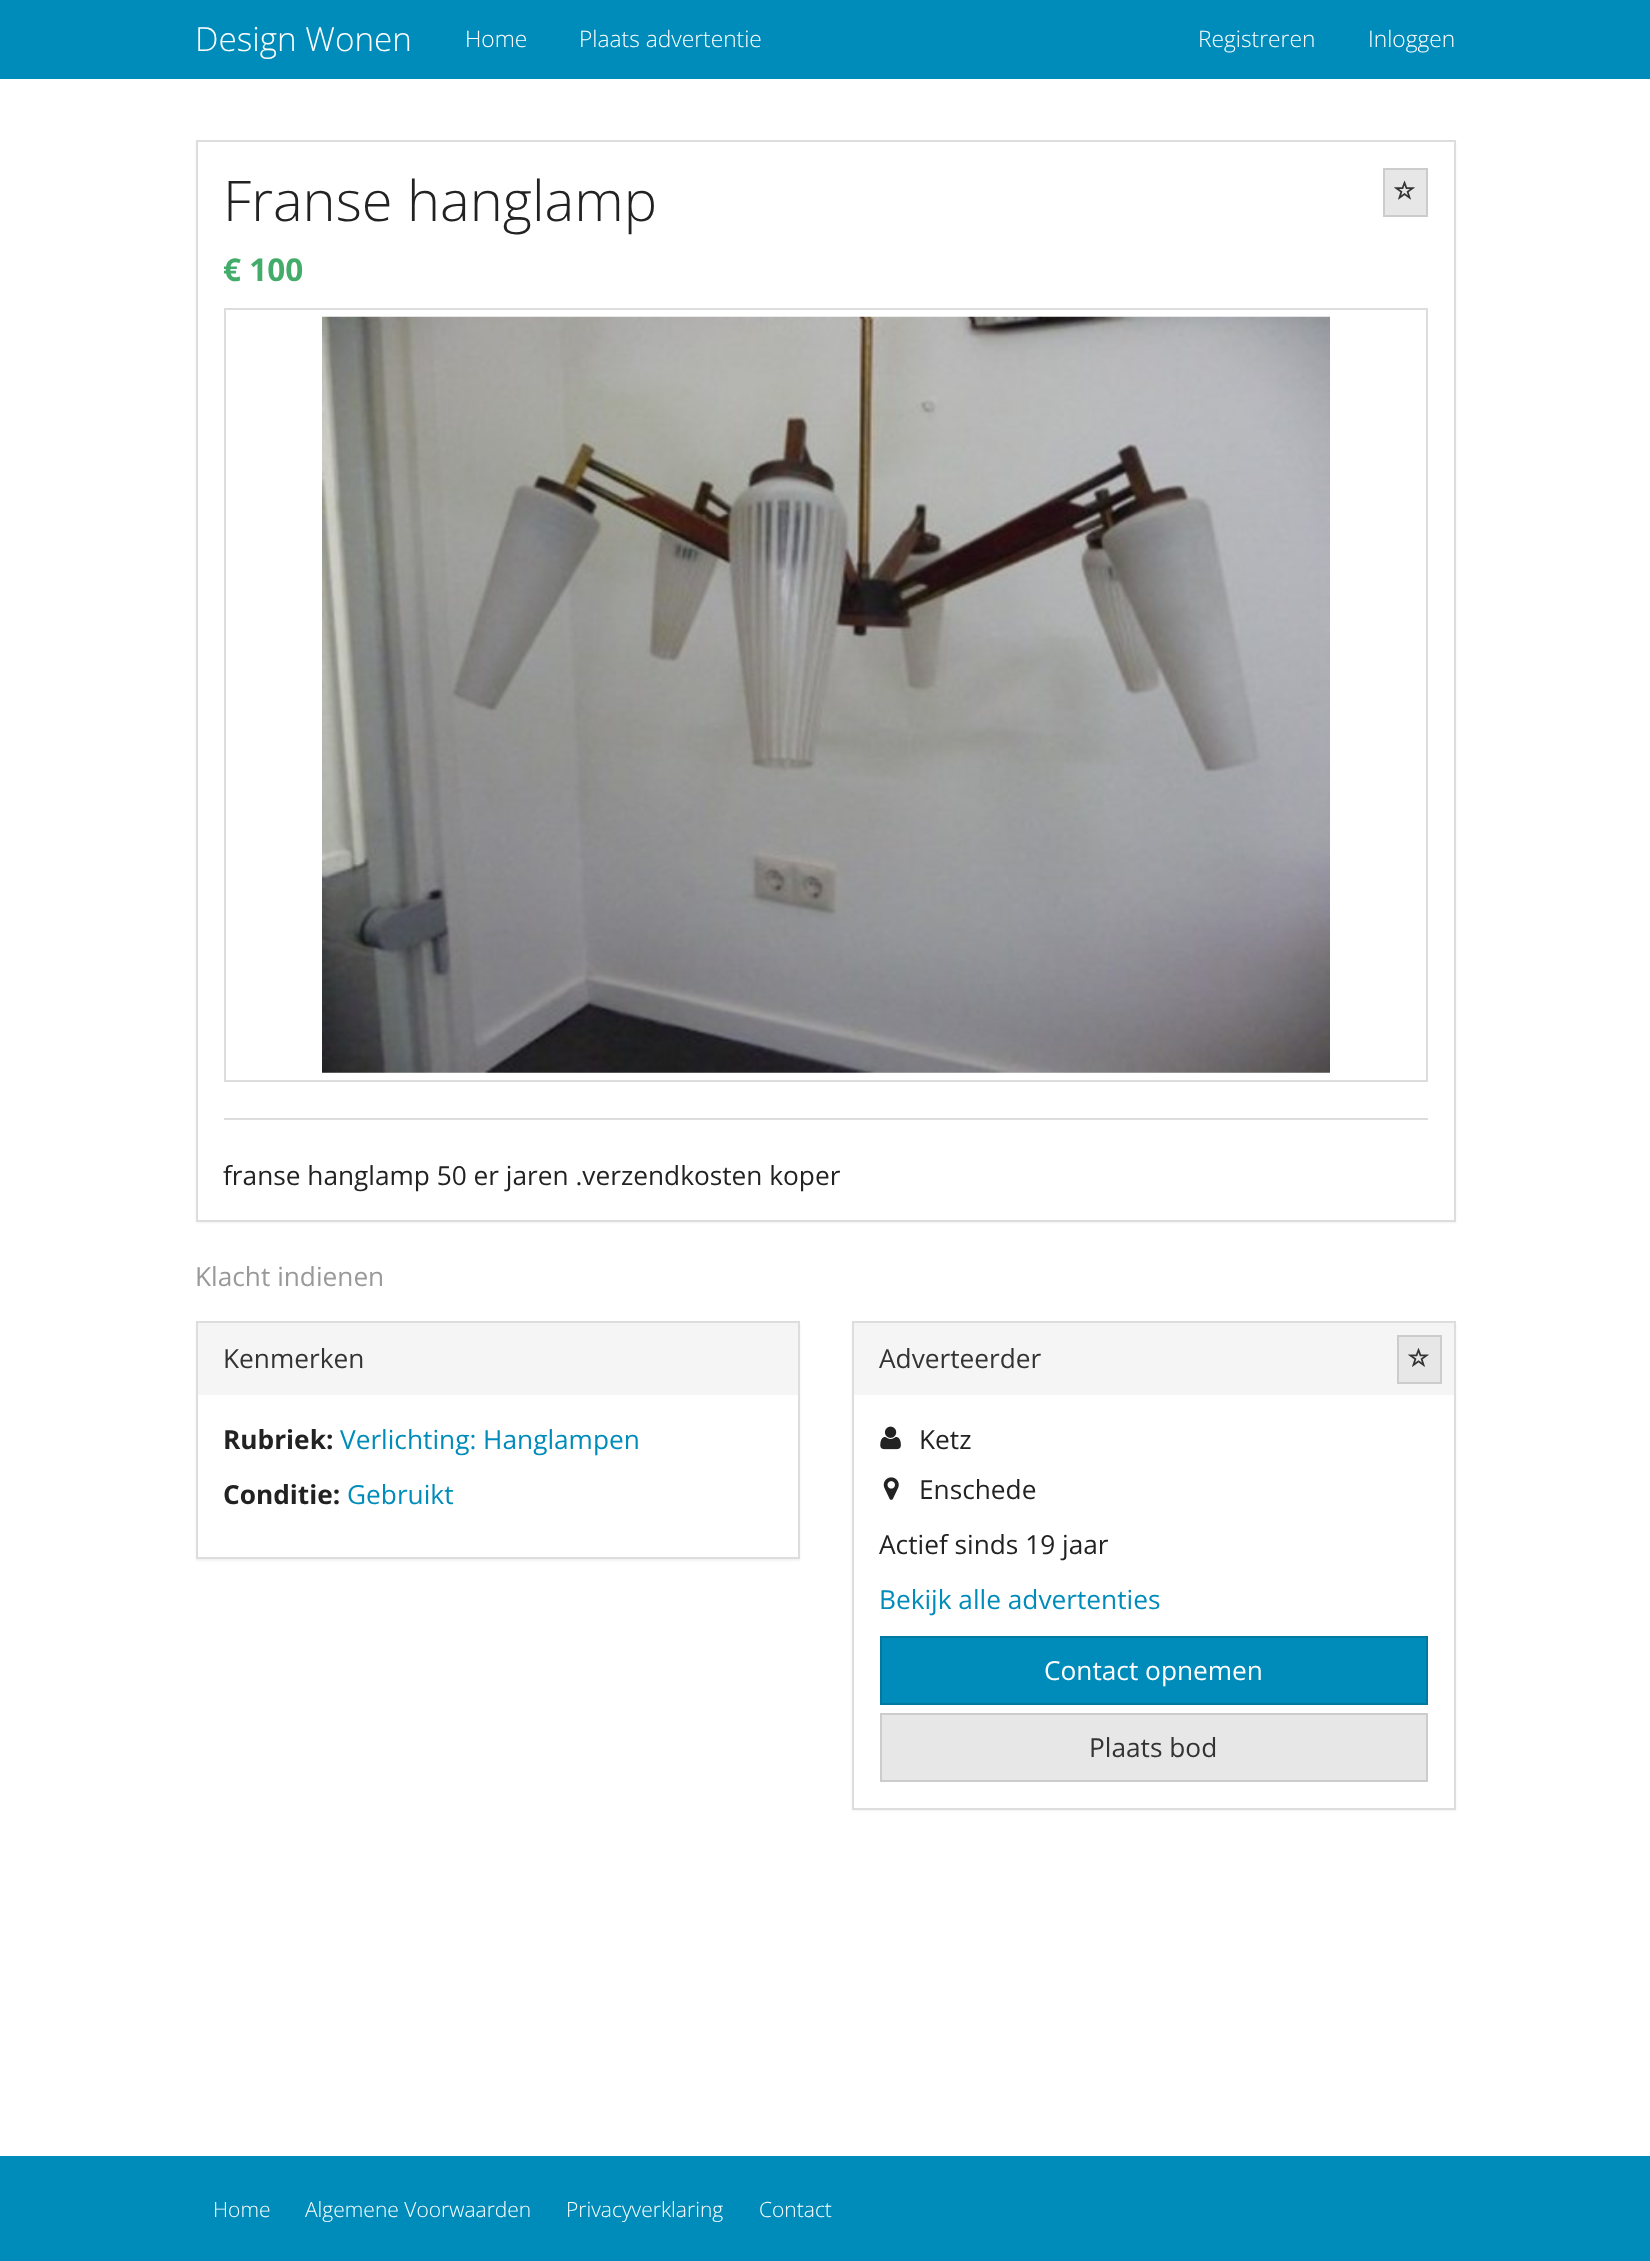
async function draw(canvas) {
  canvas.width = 1650;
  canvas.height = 2261;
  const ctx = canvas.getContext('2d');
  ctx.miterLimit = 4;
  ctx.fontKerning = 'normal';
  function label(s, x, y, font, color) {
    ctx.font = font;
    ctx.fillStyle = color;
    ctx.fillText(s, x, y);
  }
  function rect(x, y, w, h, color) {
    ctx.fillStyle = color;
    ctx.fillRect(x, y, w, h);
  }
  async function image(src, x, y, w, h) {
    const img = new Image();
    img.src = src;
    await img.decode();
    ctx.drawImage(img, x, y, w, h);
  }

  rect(0, 0, 1650, 2261, '#fff');
  rect(0, 0, 1650, 79, '#008cba');
  label('Design Wonen', 195, 51, '300 33.25px Open Sans', '#fff');
  label('Home', 465, 47, '300 22.75px Open Sans', '#fff');
  label('Plaats advertentie', 579, 47, '300 22.75px Open Sans', '#fff');
  label('Registreren', 1198, 47, '300 22.75px Open Sans', '#fff');
  label('Inloggen', 1368, 47, '300 22.75px Open Sans', '#fff');
  ctx.fillStyle = '#0000000d';
  ctx.filter = 'blur(1px)';
  ctx.beginPath();
  ctx.rect(196, 142, 1260, 1081);
  ctx.fill();
  ctx.filter = 'none';
  ctx.fillStyle = '#fff';
  ctx.beginPath();
  ctx.rect(197, 141, 1258, 1080);
  ctx.fill();
  ctx.strokeStyle = '#ddd';
  ctx.lineWidth = 2;
  ctx.stroke();
  label('Franse hanglamp', 223, 221, '300 56px Open Sans', '#222');
  ctx.fillStyle = '#e7e7e7';
  ctx.beginPath();
  ctx.rect(1384, 169, 43, 47);
  ctx.fill();
  ctx.strokeStyle = '#ccc';
  ctx.stroke();
  await image('assets/img1.png', 1394, 180, 21, 20);
  label('€ 100', 223, 281, 'bold 31.5px Open Sans', '#43ac6a');
  ctx.strokeStyle = '#ddd';
  ctx.strokeRect(225, 309, 1202, 772);
  await image('assets/img2.png', 322, 316, 1008, 757);
  rect(224, 1118, 1204, 2, '#ddd');
  label('franse hanglamp 50 er jaren .verzendkosten koper', 223, 1185, '26.25px Open Sans', '#222');
  label('Klacht indienen', 195, 1286, '26.25px Open Sans', '#999');
  ctx.fillStyle = '#0000000d';
  ctx.filter = 'blur(1px)';
  ctx.beginPath();
  ctx.rect(196, 1323, 604, 238);
  ctx.fill();
  ctx.filter = 'none';
  rect(198, 1395, 600, 162, '#fff');
  ctx.strokeRect(197, 1322, 602, 236);
  rect(198, 1325, 600, 70, '#f5f5f5');
  label('Kenmerken', 223, 1368, '26.25px Open Sans', '#333');
  label('Rubriek:', 223, 1449, 'bold 26.25px Open Sans', '#222');
  label('Verlichting: Hanglampen', 340, 1449, '26.25px Open Sans', '#008cba');
  label('Conditie:', 223, 1504, 'bold 26.25px Open Sans', '#222');
  label('Gebruikt', 347, 1504, '26.25px Open Sans', '#008cba');
  ctx.fillStyle = '#0000000d';
  ctx.filter = 'blur(1px)';
  ctx.beginPath();
  ctx.rect(852, 1323, 604, 488);
  ctx.fill();
  ctx.filter = 'none';
  rect(854, 1395, 600, 413, '#fff');
  ctx.strokeRect(853, 1322, 602, 487);
  rect(854, 1325, 600, 70, '#f5f5f5');
  label('Adverteerder', 879, 1368, '26.25px Open Sans', '#333');
  ctx.fillStyle = '#e7e7e7';
  ctx.beginPath();
  ctx.rect(1398, 1336, 43, 47);
  ctx.fill();
  ctx.strokeStyle = '#ccc';
  ctx.stroke();
  await image('assets/img3.png', 1408, 1348, 21, 19);
  await image('assets/img4.png', 880, 1426, 21, 24);
  label('Ketz', 919, 1449, '26.25px Open Sans', '#222');
  await image('assets/img5.png', 883, 1477, 16, 23);
  label('Enschede', 919, 1499, '26.25px Open Sans', '#222');
  label('Actief sinds 19 jaar', 879, 1554, '26.25px Open Sans', '#222');
  label('Bekijk alle advertenties', 879, 1609, '26.25px Open Sans', '#008cba');
  ctx.beginPath();
  ctx.rect(881, 1637, 546, 67);
  ctx.fill();
  ctx.strokeStyle = '#0079a1';
  ctx.stroke();
  label('Contact opnemen', 1044, 1680, '26.25px Open Sans', '#fff');
  ctx.fillStyle = '#e7e7e7';
  ctx.beginPath();
  ctx.rect(881, 1714, 546, 67);
  ctx.fill();
  ctx.strokeStyle = '#ccc';
  ctx.stroke();
  label('Plaats bod', 1089, 1757, '26.25px Open Sans', '#333');
  rect(0, 2156, 1650, 105, '#008cba');
  label('Home', 213, 2217, '300 21px Open Sans', '#fff');
  label('Algemene Voorwaarden', 305, 2217, '300 21px Open Sans', '#fff');
  label('Privacyverklaring', 566, 2217, '300 21px Open Sans', '#fff');
  label('Contact', 759, 2217, '300 21px Open Sans', '#fff');
}

draw(document.querySelector('canvas'));
